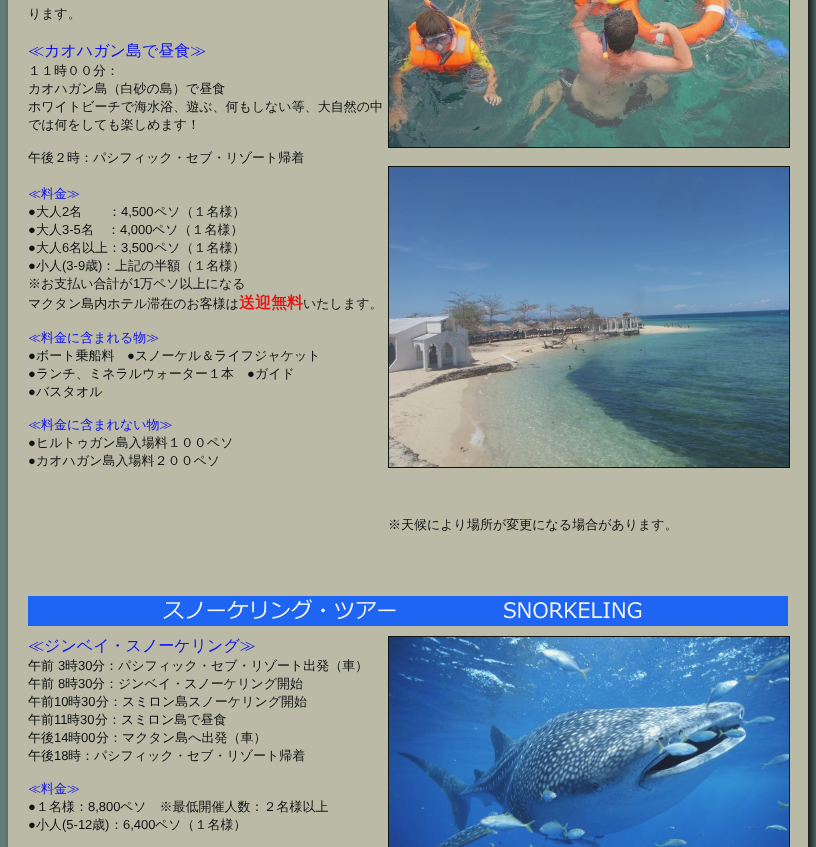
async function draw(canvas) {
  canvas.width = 816;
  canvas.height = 847;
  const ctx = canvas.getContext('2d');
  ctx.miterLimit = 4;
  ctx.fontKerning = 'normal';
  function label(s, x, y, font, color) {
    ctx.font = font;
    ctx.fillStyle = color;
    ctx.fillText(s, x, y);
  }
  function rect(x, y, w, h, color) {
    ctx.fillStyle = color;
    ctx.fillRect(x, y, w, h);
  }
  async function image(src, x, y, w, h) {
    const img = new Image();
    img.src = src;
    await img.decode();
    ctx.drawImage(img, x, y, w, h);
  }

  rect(0, 0, 816, 847, '#637d79');
  ctx.fillStyle = '#0f1312';
  ctx.filter = 'blur(5px)';
  ctx.beginPath();
  ctx.rect(13, -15, 800, 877);
  ctx.fill();
  ctx.filter = 'none';
  rect(8, 0, 800, 636, '#bbbaa7');
  label('ります。', 28, 18, '500 13px WenQuanYi Zen Hei', '#0f1312');
  label('≪カオハガン島で昼食≫', 28, 56, '500 16px WenQuanYi Zen Hei', '#0f13eb');
  label('１１時００分：', 28, 75, '500 13px WenQuanYi Zen Hei', '#0f1312');
  label('カオハガン島（白砂の島）で昼食', 28, 93, '500 13px WenQuanYi Zen Hei', '#0f1312');
  label('ホワイトビーチで海水浴、遊ぶ、何もしない等、大自然の中', 28, 111, '500 13px WenQuanYi Zen Hei', '#0f1312');
  label('では何をしても楽しめます！', 28, 129, '500 13px WenQuanYi Zen Hei', '#0f1312');
  label('午後２時：パシフィック・セブ・リゾート帰着', 28, 162, '500 13px WenQuanYi Zen Hei', '#0f1312');
  label('≪料金≫', 28, 198, '500 13px WenQuanYi Zen Hei', '#0f13eb');
  label('●', 28, 216, '13px Liberation Sans', '#0f1312');
  label('大人', 36, 216, '500 13px WenQuanYi Zen Hei', '#0f1312');
  label('2', 62, 216, '13px Liberation Sans', '#0f1312');
  label('名　　：', 69, 216, '500 13px WenQuanYi Zen Hei', '#0f1312');
  label('4,500', 121, 216, '13px Liberation Sans', '#0f1312');
  label('ペソ（１名様）', 154, 216, '500 13px WenQuanYi Zen Hei', '#0f1312');
  label('●', 28, 234, '13px Liberation Sans', '#0f1312');
  label('大人', 36, 234, '500 13px WenQuanYi Zen Hei', '#0f1312');
  label('3-5', 62, 234, '13px Liberation Sans', '#0f1312');
  label('名　：', 81, 234, '500 13px WenQuanYi Zen Hei', '#0f1312');
  label('4,000', 120, 234, '13px Liberation Sans', '#0f1312');
  label('ペソ（１名様）', 152, 234, '500 13px WenQuanYi Zen Hei', '#0f1312');
  label('●', 28, 252, '13px Liberation Sans', '#0f1312');
  label('大人', 36, 252, '500 13px WenQuanYi Zen Hei', '#0f1312');
  label('6', 62, 252, '13px Liberation Sans', '#0f1312');
  label('名以上：', 69, 252, '500 13px WenQuanYi Zen Hei', '#0f1312');
  label('3,500', 121, 252, '13px Liberation Sans', '#0f1312');
  label('ペソ（１名様）', 154, 252, '500 13px WenQuanYi Zen Hei', '#0f1312');
  label('●', 28, 270, '13px Liberation Sans', '#0f1312');
  label('小人', 36, 270, '500 13px WenQuanYi Zen Hei', '#0f1312');
  label('(3-9', 62, 270, '13px Liberation Sans', '#0f1312');
  label('歳', 85, 270, '500 13px WenQuanYi Zen Hei', '#0f1312');
  label(')', 98, 270, '13px Liberation Sans', '#0f1312');
  label('：上記の半額（１名様）', 102, 270, '500 13px WenQuanYi Zen Hei', '#0f1312');
  label('※お支払い合計が', 28, 288, '500 13px WenQuanYi Zen Hei', '#0f1312');
  label('1', 133, 288, '13px Liberation Sans', '#0f1312');
  label('万ペソ以上になる', 140, 288, '500 13px WenQuanYi Zen Hei', '#0f1312');
  label('マクタン島内ホテル滞在のお客様は', 28, 308, '500 13px WenQuanYi Zen Hei', '#0f1312');
  label('送迎無料', 239, 308, 'bold 16px WenQuanYi Zen Hei', '#e81312');
  label('いたします。', 303, 308, '500 13px WenQuanYi Zen Hei', '#0f1312');
  label('≪料金に含まれる物≫', 28, 342, '500 13px WenQuanYi Zen Hei', '#0f13eb');
  label('●', 28, 360, '13px Liberation Sans', '#0f1312');
  label('ボート乗船料', 36, 360, '500 13px WenQuanYi Zen Hei', '#0f1312');
  label('●', 127, 360, '13px Liberation Sans', '#0f1312');
  label('スノーケル＆ライフジャケット', 135, 360, '500 13px WenQuanYi Zen Hei', '#0f1312');
  label('●', 28, 378, '13px Liberation Sans', '#0f1312');
  label('ランチ、ミネラルウォーター１本', 36, 378, '500 13px WenQuanYi Zen Hei', '#0f1312');
  label('●', 247, 378, '13px Liberation Sans', '#0f1312');
  label('ガイド', 255, 378, '500 13px WenQuanYi Zen Hei', '#0f1312');
  label('●', 28, 396, '13px Liberation Sans', '#0f1312');
  label('バスタオル', 36, 396, '500 13px WenQuanYi Zen Hei', '#0f1312');
  label('≪料金に含まれない物≫', 28, 429, '500 13px WenQuanYi Zen Hei', '#0f13eb');
  label('●', 28, 447, '13px Liberation Sans', '#0f1312');
  label('ヒルトゥガン島入場料１００ペソ', 36, 447, '500 13px WenQuanYi Zen Hei', '#0f1312');
  label('●', 28, 465, '13px Liberation Sans', '#0f1312');
  label('カオハガン島入場料２００ペソ', 36, 465, '500 13px WenQuanYi Zen Hei', '#0f1312');
  ctx.strokeStyle = '#0f1312';
  ctx.strokeRect(388.5, -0.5, 401, 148);
  await image('assets/img1.png', 389, 0, 400, 147);
  ctx.strokeRect(388.5, 166.5, 401, 301);
  await image('assets/img2.png', 389, 167, 400, 300);
  label('※天候により場所が変更になる場合があります。', 388, 529, '500 13px WenQuanYi Zen Hei', '#0f1312');
  await image('assets/img3.png', 28, 596, 760, 30);
  rect(8, 636, 380, 211, '#bbbaa7');
  label('≪ジンベイ・スノーケリング≫', 28, 651, '500 16px WenQuanYi Zen Hei', '#0f13eb');
  label('午前', 28, 670, '500 13px WenQuanYi Zen Hei', '#0f1312');
  label('3', 58, 670, '13px Liberation Sans', '#0f1312');
  label('時', 65, 670, '500 13px WenQuanYi Zen Hei', '#0f1312');
  label('30', 78, 670, '13px Liberation Sans', '#0f1312');
  label('分：パシフィック・セブ・リゾート出発（車）', 92, 670, '500 13px WenQuanYi Zen Hei', '#0f1312');
  label('午前', 28, 688, '500 13px WenQuanYi Zen Hei', '#0f1312');
  label('8', 58, 688, '13px Liberation Sans', '#0f1312');
  label('時', 65, 688, '500 13px WenQuanYi Zen Hei', '#0f1312');
  label('30', 78, 688, '13px Liberation Sans', '#0f1312');
  label('分：ジンベイ・スノーケリング開始', 92, 688, '500 13px WenQuanYi Zen Hei', '#0f1312');
  label('午前', 28, 706, '500 13px WenQuanYi Zen Hei', '#0f1312');
  label('10', 54, 706, '13px Liberation Sans', '#0f1312');
  label('時', 68, 706, '500 13px WenQuanYi Zen Hei', '#0f1312');
  label('30', 81, 706, '13px Liberation Sans', '#0f1312');
  label('分：スミロン島スノーケリング開始', 96, 706, '500 13px WenQuanYi Zen Hei', '#0f1312');
  label('午前', 28, 724, '500 13px WenQuanYi Zen Hei', '#0f1312');
  label('11', 54, 724, '13px Liberation Sans', '#0f1312');
  label('時', 67, 724, '500 13px WenQuanYi Zen Hei', '#0f1312');
  label('30', 80, 724, '13px Liberation Sans', '#0f1312');
  label('分：スミロン島で昼食', 95, 724, '500 13px WenQuanYi Zen Hei', '#0f1312');
  label('午後', 28, 742, '500 13px WenQuanYi Zen Hei', '#0f1312');
  label('14', 54, 742, '13px Liberation Sans', '#0f1312');
  label('時', 68, 742, '500 13px WenQuanYi Zen Hei', '#0f1312');
  label('00', 81, 742, '13px Liberation Sans', '#0f1312');
  label('分：マクタン島へ出発（車）', 96, 742, '500 13px WenQuanYi Zen Hei', '#0f1312');
  label('午後', 28, 760, '500 13px WenQuanYi Zen Hei', '#0f1312');
  label('18', 54, 760, '13px Liberation Sans', '#0f1312');
  label('時：パシフィック・セブ・リゾート帰着', 68, 760, '500 13px WenQuanYi Zen Hei', '#0f1312');
  label('≪料金≫', 28, 793, '500 13px WenQuanYi Zen Hei', '#0f13eb');
  label('●', 28, 811, '13px Liberation Sans', '#0f1312');
  label('１名様：', 36, 811, '500 13px WenQuanYi Zen Hei', '#0f1312');
  label('8,800', 88, 811, '13px Liberation Sans', '#0f1312');
  label('ペソ　※最低開催人数：２名様以上', 120, 811, '500 13px WenQuanYi Zen Hei', '#0f1312');
  label('●', 28, 829, '13px Liberation Sans', '#0f1312');
  label('小人', 36, 829, '500 13px WenQuanYi Zen Hei', '#0f1312');
  label('(5-12', 62, 829, '13px Liberation Sans', '#0f1312');
  label('歳', 92, 829, '500 13px WenQuanYi Zen Hei', '#0f1312');
  label(')', 105, 829, '13px Liberation Sans', '#0f1312');
  label('：', 110, 829, '500 13px WenQuanYi Zen Hei', '#0f1312');
  label('6,400', 123, 829, '13px Liberation Sans', '#0f1312');
  label('ペソ（１名様）', 155, 829, '500 13px WenQuanYi Zen Hei', '#0f1312');
  rect(389, 636, 419, 211, '#bbbaa7');
  ctx.strokeRect(388.5, 636.5, 401, 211);
  await image('assets/img4.png', 389, 637, 400, 210);
}

draw(document.querySelector('canvas'));
